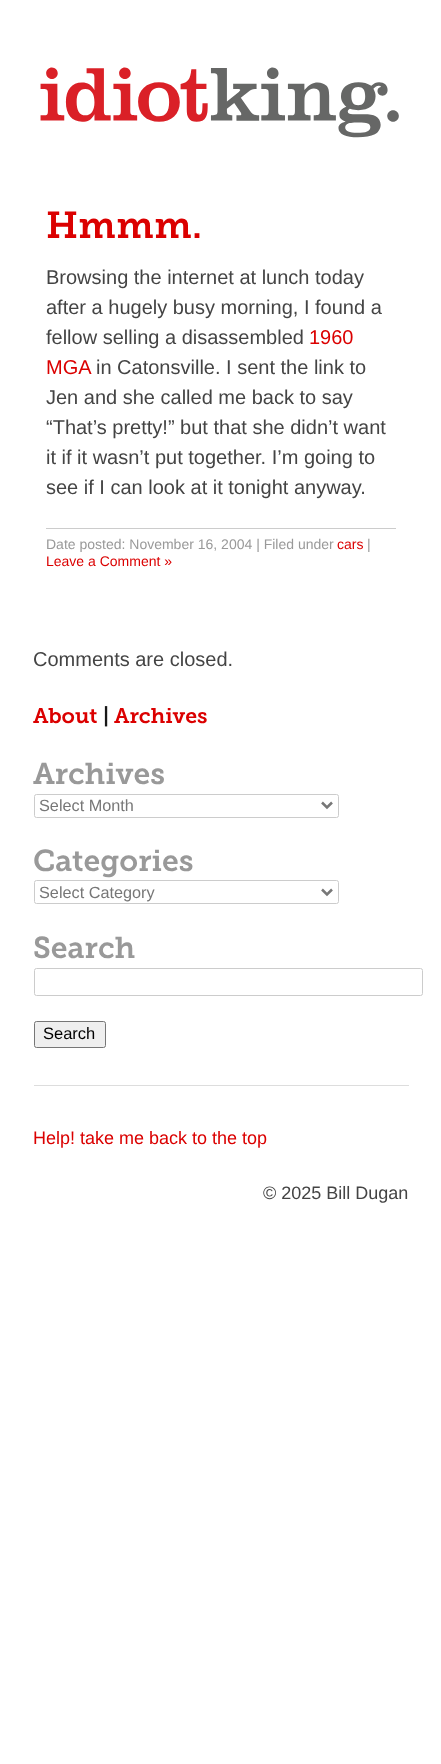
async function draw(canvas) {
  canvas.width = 441;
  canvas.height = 1764;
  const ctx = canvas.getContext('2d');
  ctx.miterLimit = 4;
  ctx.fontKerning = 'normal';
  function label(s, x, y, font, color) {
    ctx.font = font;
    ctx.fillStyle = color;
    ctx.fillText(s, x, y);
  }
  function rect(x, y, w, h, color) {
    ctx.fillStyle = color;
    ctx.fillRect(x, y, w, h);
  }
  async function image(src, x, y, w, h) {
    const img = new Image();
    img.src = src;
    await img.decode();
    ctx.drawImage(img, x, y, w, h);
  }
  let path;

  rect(0, 0, 441, 1764, '#fff');
  await image('assets/img1.png', 40, 67, 359, 71);
  ctx.letterSpacing = '0.5px';
  label('Hmmm.', 46, 238, '600 37.5px "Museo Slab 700"', '#db0000');
  ctx.letterSpacing = '0px';
  label('Browsing the internet at lunch today', 46, 284, '20px Liberation Sans', '#444');
  label('after a hugely busy morning, I found a', 46, 314, '20px Liberation Sans', '#444');
  label('fellow selling a disassembled', 46, 344, '20px Liberation Sans', '#444');
  label('1960', 309, 344, '20px Liberation Sans', '#db0000');
  label('MGA', 46, 374, '20px Liberation Sans', '#db0000');
  label('in Catonsville. I sent the link to', 96, 374, '20px Liberation Sans', '#444');
  label('Jen and she called me back to say', 46, 404, '20px Liberation Sans', '#444');
  label('“That’s pretty!” but that she didn’t want', 46, 434, '20px Liberation Sans', '#444');
  label('it if it wasn’t put together. I’m going to', 46, 464, '20px Liberation Sans', '#444');
  label('see if I can look at it tonight anyway.', 46, 494, '20px Liberation Sans', '#444');
  rect(46, 528, 350, 1, '#ccc');
  label('Date posted: November 16, 2004 | Filed under', 46, 549, '14px Liberation Sans', '#999');
  label('cars', 337, 549, '14px Liberation Sans', '#db0000');
  label('|', 367, 549, '14px Liberation Sans', '#999');
  label('Leave a Comment »', 46, 566, '14px Liberation Sans', '#db0000');
  label('Comments are closed.', 33, 666, '20px Liberation Sans', '#444');
  label('About', 33, 723, '600 21.25px "Museo Slab 700"', '#db0000');
  label('|', 103, 723, '600 21.25px "Museo Slab 700"', '#181818');
  label('Archives', 114, 723, '600 21.25px "Museo Slab 700"', '#db0000');
  label('Archives', 33, 784, '600 30px "Museo Slab 700"', '#999');
  ctx.beginPath();
  ctx.roundRect(34.5, 794.5, 304, 23, 2);
  ctx.strokeStyle = '#ccc';
  ctx.stroke();
  path = new Path2D('M322 802.5L327 807.5L332 802.5');
  ctx.strokeStyle = '#777';
  ctx.lineWidth = 2.5;
  ctx.stroke(path);
  label('Select Month', 39, 811, '16.25px Liberation Sans', '#777');
  label('Categories', 33, 871, '600 30px "Museo Slab 700"', '#999');
  ctx.beginPath();
  ctx.roundRect(34.5, 880.5, 304, 23, 2);
  ctx.strokeStyle = '#ccc';
  ctx.lineWidth = 1;
  ctx.stroke();
  path = new Path2D('M322 889.5L327 894.5L332 889.5');
  ctx.strokeStyle = '#777';
  ctx.lineWidth = 2.5;
  ctx.stroke(path);
  label('Select Category', 39, 898, '16.25px Liberation Sans', '#777');
  label('Search', 33, 958, '600 30px "Museo Slab 700"', '#999');
  ctx.beginPath();
  ctx.roundRect(34.5, 968.5, 388, 27, 2);
  ctx.strokeStyle = '#ccc';
  ctx.lineWidth = 1;
  ctx.stroke();
  ctx.fillStyle = '#efefef';
  ctx.beginPath();
  ctx.roundRect(34.5, 1021.5, 71, 26, 2);
  ctx.fill();
  ctx.strokeStyle = '#767676';
  ctx.stroke();
  label('Search', 43, 1039, '16.5px Liberation Sans', '#000');
  rect(34, 1085, 375, 1, '#ddd');
  label('Help! take me back to the top', 33, 1144, '18px Liberation Sans', '#db0000');
  label('© 2025 Bill Dugan', 263, 1199, '18px Liberation Sans', '#444');
}

draw(document.querySelector('canvas'));
